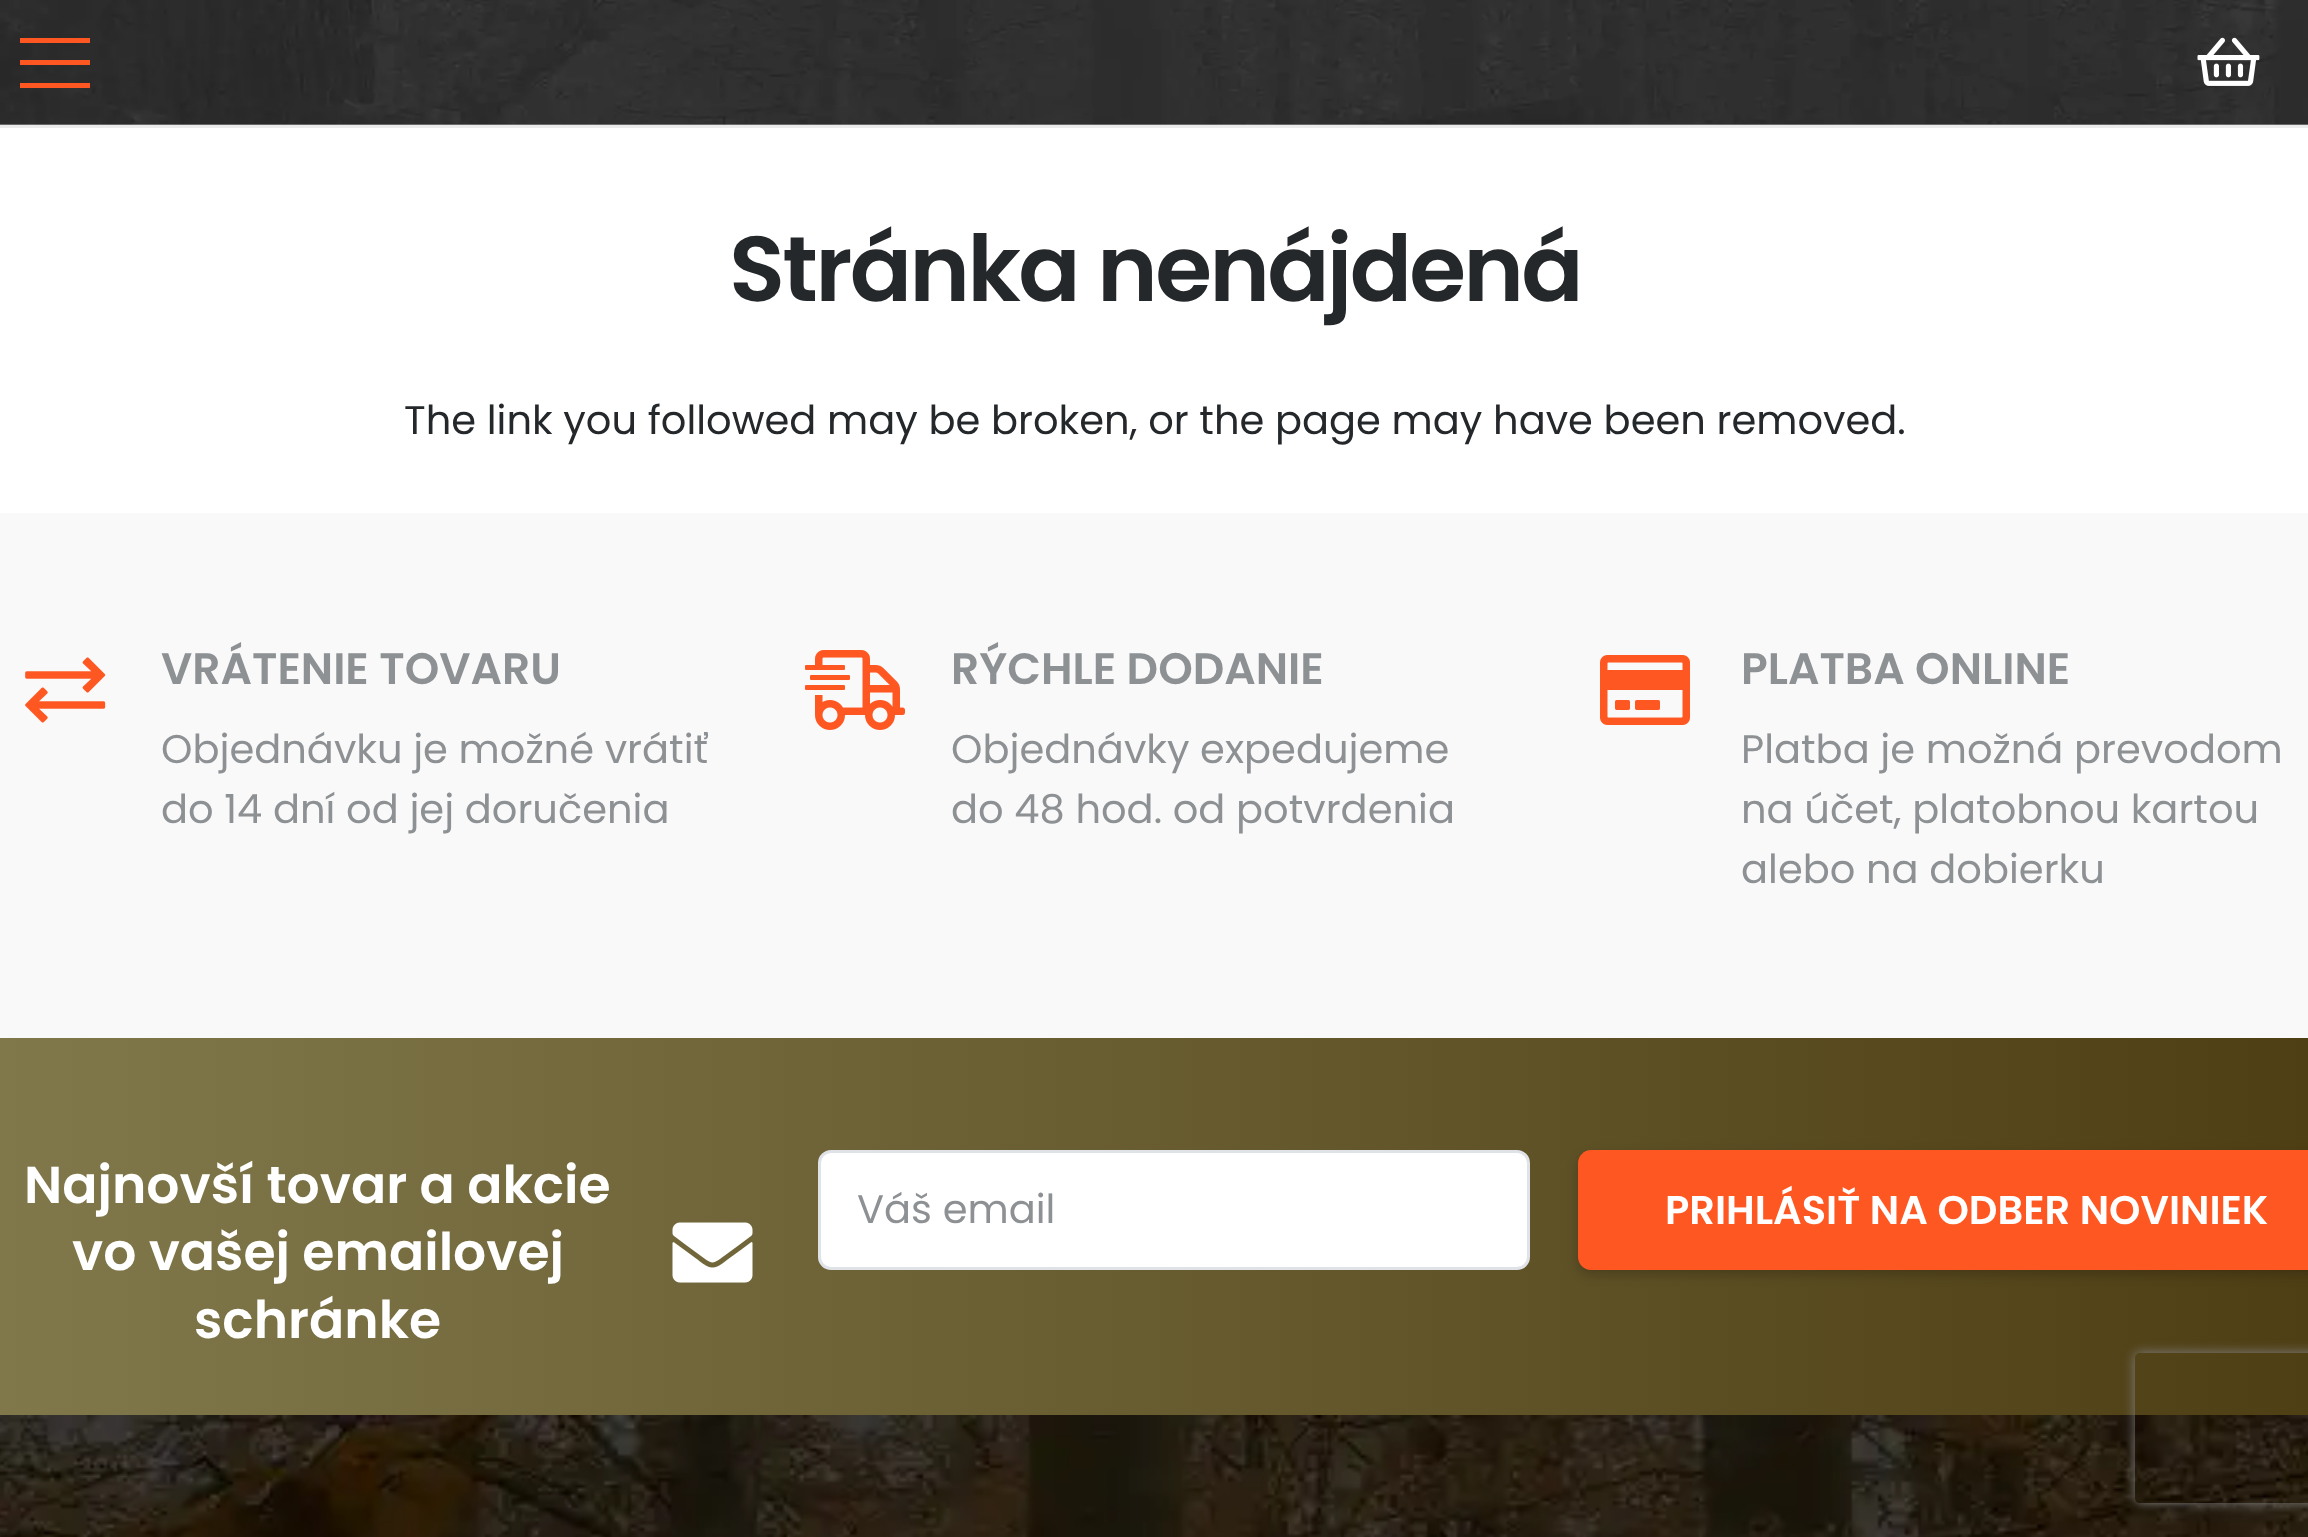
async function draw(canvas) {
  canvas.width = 2308;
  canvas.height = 1537;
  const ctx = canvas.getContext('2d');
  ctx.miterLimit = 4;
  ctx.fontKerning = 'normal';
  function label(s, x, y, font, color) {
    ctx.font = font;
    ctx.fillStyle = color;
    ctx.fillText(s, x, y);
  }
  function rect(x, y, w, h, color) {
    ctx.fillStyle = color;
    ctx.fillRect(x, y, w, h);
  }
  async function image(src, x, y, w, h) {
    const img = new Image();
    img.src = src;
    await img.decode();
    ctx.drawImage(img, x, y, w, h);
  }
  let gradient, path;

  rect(0, 0, 2308, 1537, '#fff');
  await image('assets/img1.png', 0, 0, 2308, 125);
  rect(0, 125, 2308, 3, '#ebebeb');
  rect(20, 60, 70, 5, '#ff5722');
  rect(20, 38, 70, 5, '#ff5722');
  rect(20, 83, 70, 5, '#ff5722');
  await image('assets/img2.png', 2197, 37, 63, 49);
  ctx.letterSpacing = '-2.75px';
  label('Stránka nenájdená', 729, 301, '600 92px Poppins', '#25282b');
  ctx.letterSpacing = '0px';
  label('The link you followed may be broken, or the page may have been removed.', 404, 434, '40px Poppins', '#25282b');
  rect(0, 513, 2308, 525, '#f9f9f9');
  await image('assets/img3.png', 25, 657, 81, 66);
  label('VRÁTENIE TOVARU', 161, 684, '600 44px Poppins', '#8e9194');
  label('Objednávku je možné vrátiť', 161, 763, '40px Poppins', '#8e9194');
  label('do 14 dní od jej doručenia', 161, 823, '40px Poppins', '#8e9194');
  await image('assets/img4.png', 805, 650, 100, 80);
  label('RÝCHLE DODANIE', 951, 684, '600 44px Poppins', '#8e9194');
  label('Objednávky expedujeme', 951, 763, '40px Poppins', '#8e9194');
  label('do 48 hod. od potvrdenia', 951, 823, '40px Poppins', '#8e9194');
  await image('assets/img5.png', 1600, 655, 90, 70);
  label('PLATBA ONLINE', 1741, 684, '600 44px Poppins', '#8e9194');
  label('Platba je možná prevodom', 1741, 763, '40px Poppins', '#8e9194');
  label('na účet, platobnou kartou', 1741, 823, '40px Poppins', '#8e9194');
  label('alebo na dobierku', 1741, 883, '40px Poppins', '#8e9194');
  gradient = ctx.createLinearGradient(0, 1226, 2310, 1226);
  gradient.addColorStop(0, '#80784b');
  gradient.addColorStop(1, '#4f3f15');
  ctx.fillStyle = gradient;
  ctx.fillRect(0, 1038, 2308, 377);
  label('Najnovší tovar a akcie', 24, 1203, '600 52px Poppins', '#fff');
  label('vo vašej emailovej', 72, 1270, '600 52px Poppins', '#fff');
  label('schránke', 194, 1338, '600 52px Poppins', '#fff');
  await image('assets/img6.png', 672, 1222, 81, 61);
  ctx.beginPath();
  ctx.roundRect(819.5, 1151.5, 709, 117, 11.5);
  ctx.fill();
  ctx.strokeStyle = '#dfe2e6';
  ctx.lineWidth = 3;
  ctx.stroke();
  label('Váš email', 857, 1223, '40px Poppins', '#8e9194');
  ctx.fillStyle = '#00000033';
  ctx.filter = 'blur(6px)';
  ctx.beginPath();
  ctx.roundRect(1578, 1155, 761, 120, 13);
  ctx.fill();
  ctx.filter = 'none';
  ctx.fillStyle = '#ff5722';
  path = new Path2D('M1591 1150H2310V1270H1591C1584 1270 1578 1264 1578 1257V1163C1578 1156 1584 1150 1591 1150Z');
  ctx.fill(path);
  label('PRIHLÁSIŤ NA ODBER NOVINIEK', 1665, 1224, '600 40px Poppins', '#fff');
  await image('assets/img7.png', 0, 1415, 2308, 122);
  ctx.save();
  path = new Path2D('M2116 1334H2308V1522H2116ZM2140 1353H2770C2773 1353 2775 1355 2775 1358V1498C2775 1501 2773 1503 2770 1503H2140C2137 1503 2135 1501 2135 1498V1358C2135 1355 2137 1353 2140 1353Z');
  ctx.clip(path, 'evenodd');
  ctx.fillStyle = '#808080';
  ctx.filter = 'blur(6px)';
  ctx.beginPath();
  ctx.roundRect(2135, 1353, 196, 150, 5);
  ctx.fill();
  ctx.filter = 'none';
  ctx.restore();
}

draw(document.querySelector('canvas'));
